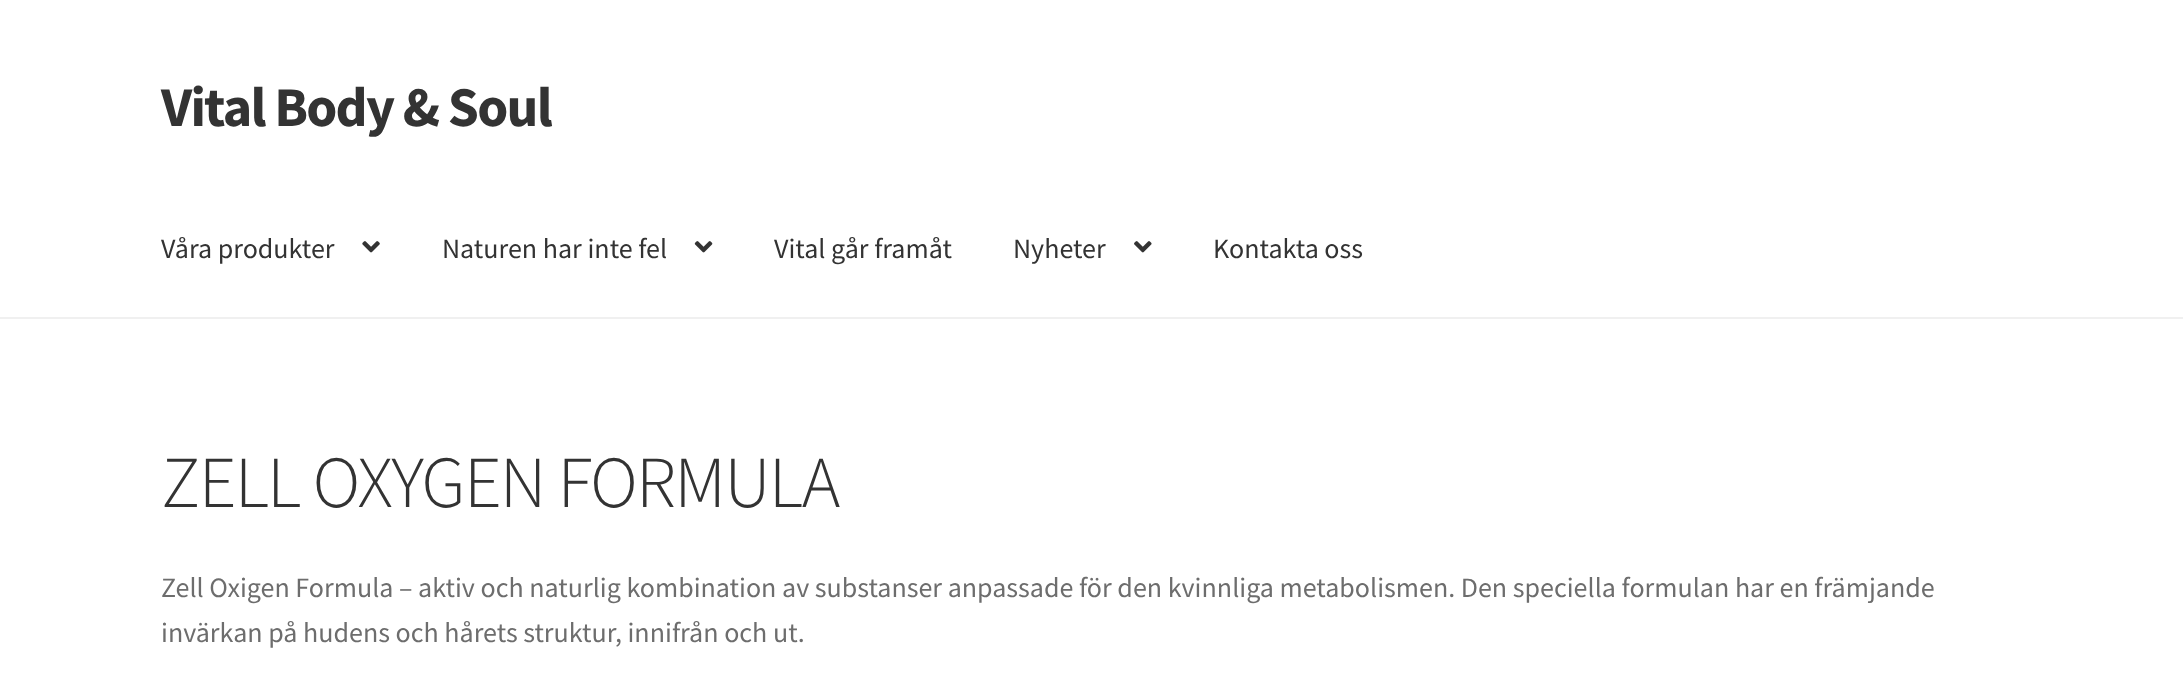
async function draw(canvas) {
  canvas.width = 2183;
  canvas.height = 694;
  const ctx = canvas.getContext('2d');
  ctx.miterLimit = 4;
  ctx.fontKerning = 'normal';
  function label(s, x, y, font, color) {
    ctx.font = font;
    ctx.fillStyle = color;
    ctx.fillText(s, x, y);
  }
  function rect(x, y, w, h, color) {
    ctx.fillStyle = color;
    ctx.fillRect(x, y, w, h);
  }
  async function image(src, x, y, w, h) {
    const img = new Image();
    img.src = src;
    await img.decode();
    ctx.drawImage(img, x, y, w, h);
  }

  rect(0, 0, 2183, 694, '#fff');
  rect(0, 317, 2183, 2, '#f0f0f0');
  ctx.letterSpacing = '-1.75px';
  label('Vital Body & Soul', 161, 126, 'bold 56px Source Sans Pro', '#333');
  ctx.letterSpacing = '0px';
  label('Våra produkter', 161, 258, '28px Source Sans Pro', '#333');
  await image('assets/img1.png', 362, 241, 18, 12);
  label('Naturen har inte fel', 442, 258, '28px Source Sans Pro', '#333');
  await image('assets/img2.png', 694, 241, 19, 12);
  label('Vital går framåt', 774, 258, '28px Source Sans Pro', '#333');
  label('Nyheter', 1013, 258, '28px Source Sans Pro', '#333');
  await image('assets/img3.png', 1134, 241, 18, 12);
  label('Kontakta oss', 1213, 258, '28px Source Sans Pro', '#333');
  ctx.letterSpacing = '-1.75px';
  label('ZELL OXYGEN FORMULA', 161, 507, '300 73.25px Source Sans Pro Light', '#333');
  ctx.letterSpacing = '0px';
  label('Zell Oxigen Formula – aktiv och naturlig kombination av substanser anpassade för den kvinnliga metabolismen. Den speciella formulan har en främjande', 161, 597, '28px Source Sans Pro', '#6d6d6d');
  label('invärkan på hudens och hårets struktur, innifrån och ut.', 161, 642, '28px Source Sans Pro', '#6d6d6d');
}

draw(document.querySelector('canvas'));
